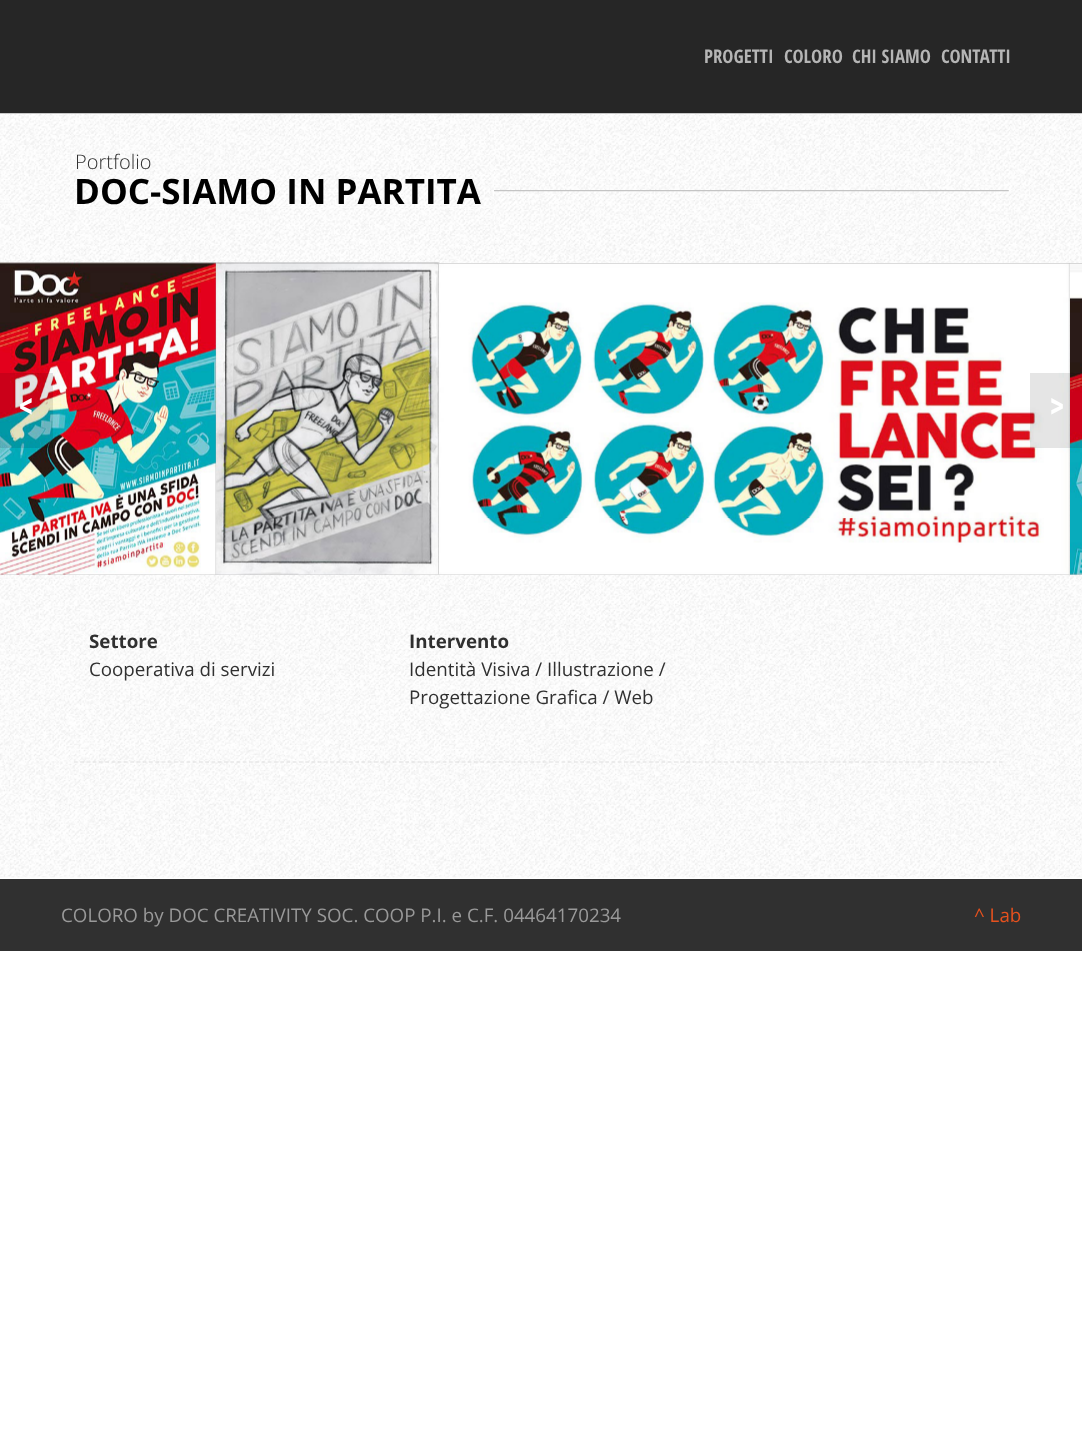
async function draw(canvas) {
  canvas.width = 1082;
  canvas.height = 1437;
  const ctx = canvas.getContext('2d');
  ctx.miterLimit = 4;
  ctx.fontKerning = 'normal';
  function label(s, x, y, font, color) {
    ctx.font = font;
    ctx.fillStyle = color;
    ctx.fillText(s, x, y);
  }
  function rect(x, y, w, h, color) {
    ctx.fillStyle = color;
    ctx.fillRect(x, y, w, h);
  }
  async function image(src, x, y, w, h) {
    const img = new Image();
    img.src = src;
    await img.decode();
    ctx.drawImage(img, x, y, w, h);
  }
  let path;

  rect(0, 0, 1082, 1437, '#fff');
  rect(0, 0, 1082, 113, '#262626');
  rect(0, 113, 1082, 1, '#c8c8c8');
  label('PROGETTI', 704, 63, 'bold 18.75px Open Sans Condensed', '#b5b5b5');
  label('COLORO', 784, 63, 'bold 18.75px Open Sans Condensed', '#b5b5b5');
  label('CHI SIAMO', 852, 63, 'bold 18.75px Open Sans Condensed', '#b5b5b5');
  label('CONTATTI', 941, 63, 'bold 18.75px Open Sans Condensed', '#b5b5b5');
  await image('assets/img1.png', 0, 114, 1082, 764);
  await image('assets/img2.png', 73, 190, 936, 2);
  label('Portfolio', 75, 169, '300 20px Open Sans', '#303030');
  rect(74, 173, 420, 35, '#fff');
  await image('assets/img3.png', 73, 172, 421, 36);
  label('DOC-SIAMO IN PARTITA', 74, 204, 'bold 35px Open Sans', '#000');
  path = new Path2D('M74 762H1002.5');
  ctx.strokeStyle = '#dedede';
  ctx.lineWidth = 1.2;
  ctx.setLineDash([3.75, 2.5]);
  ctx.stroke(path);
  await image('assets/img4.png', 0, 262, 217, 313);
  await image('assets/img5.png', 216, 262, 224, 313);
  await image('assets/img6.png', 439, 263, 632, 312);
  await image('assets/img7.png', 1070, 263, 12, 312);
  rect(0, 373, 53, 75, '#0000001a');
  label('<', 19, 423, '40px Oswald', '#fff');
  rect(1030, 373, 52, 75, '#0000001a');
  label('>', 1049, 423, '40px Oswald', '#fff');
  label('Settore', 89, 648, 'bold 18.75px Open Sans', '#303030');
  label('Cooperativa di servizi', 89, 676, '18.75px Open Sans', '#303030');
  label('Intervento', 409, 648, 'bold 18.75px Open Sans', '#303030');
  label('Identità Visiva / Illustrazione /', 409, 676, '18.75px Open Sans', '#303030');
  label('Progettazione Grafica / Web', 409, 704, '18.75px Open Sans', '#303030');
  rect(0, 879, 1082, 72, '#303030');
  label('COLORO by DOC CREATIVITY SOC. COOP P.I. e C.F. 04464170234', 61, 922, '18.75px Open Sans', '#999');
  label('^ Lab', 974, 922, '18.75px Open Sans', '#e6511e');
}

draw(document.querySelector('canvas'));
